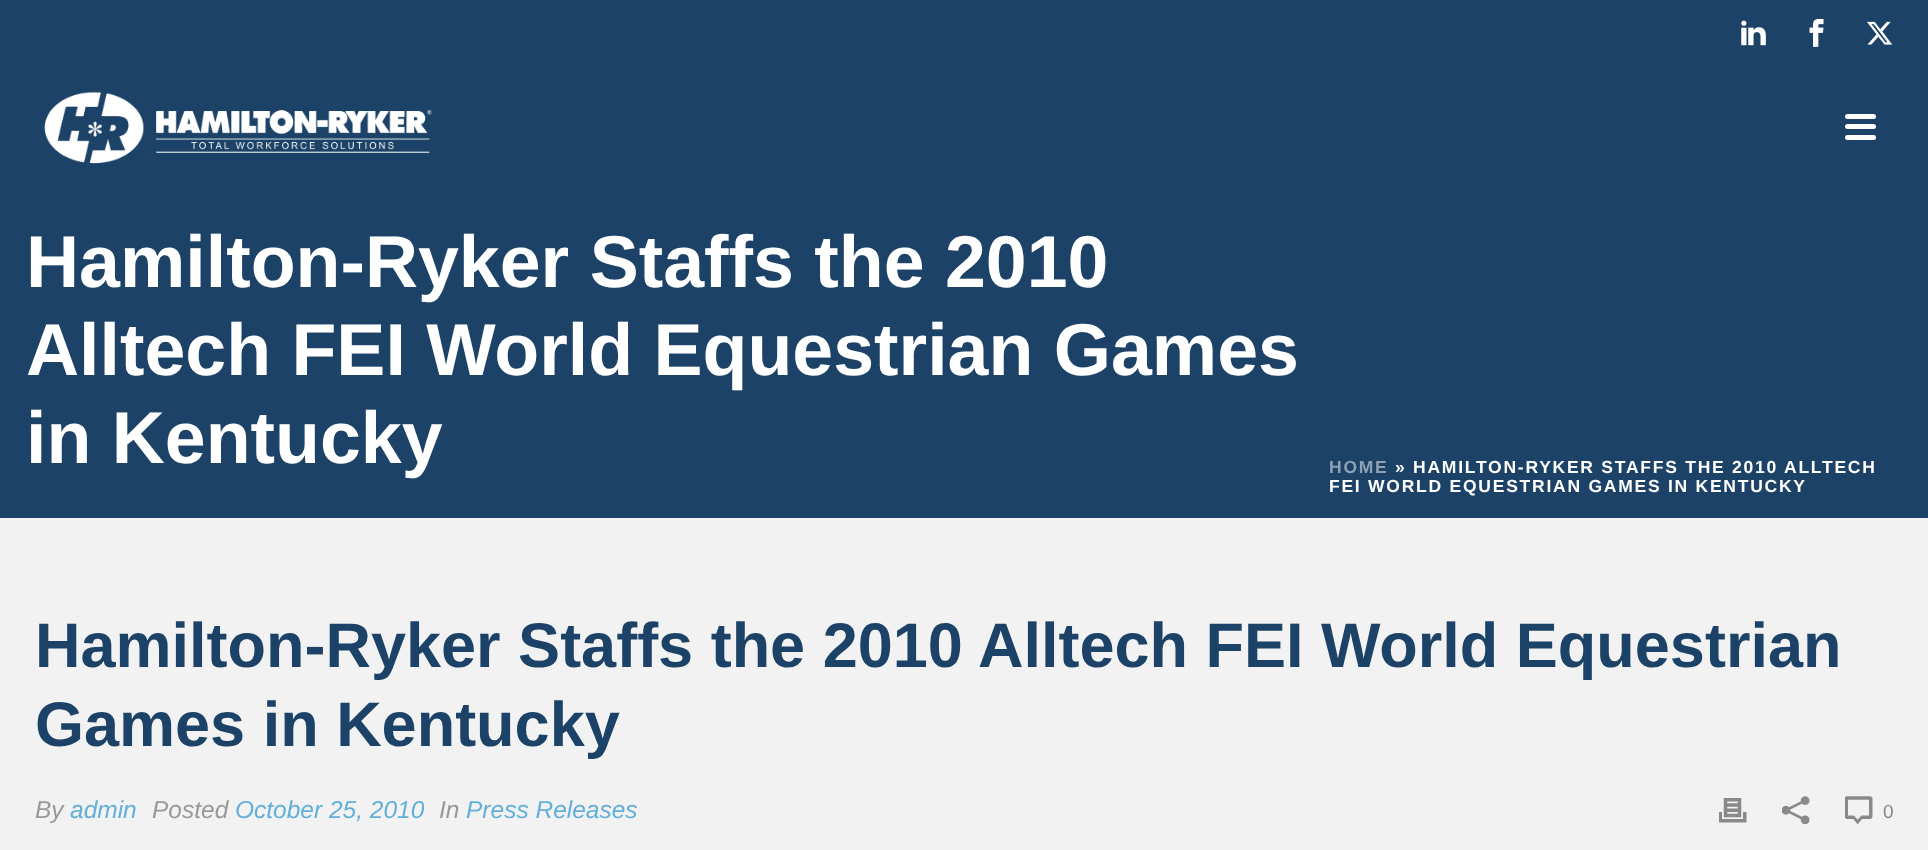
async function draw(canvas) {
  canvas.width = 1928;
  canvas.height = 850;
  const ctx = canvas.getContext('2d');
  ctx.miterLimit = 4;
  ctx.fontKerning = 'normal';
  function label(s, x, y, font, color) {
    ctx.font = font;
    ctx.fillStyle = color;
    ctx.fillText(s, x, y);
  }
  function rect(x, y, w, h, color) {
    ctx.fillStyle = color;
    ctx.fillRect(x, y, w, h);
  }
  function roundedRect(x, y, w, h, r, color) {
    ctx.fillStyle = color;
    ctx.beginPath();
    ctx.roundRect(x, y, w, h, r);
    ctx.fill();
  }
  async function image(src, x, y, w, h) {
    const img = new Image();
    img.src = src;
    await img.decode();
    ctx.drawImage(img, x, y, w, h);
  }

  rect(0, 0, 1928, 850, '#f2f2f2');
  rect(0, 0, 1928, 518, '#1c4367');
  await image('assets/img1.png', 1741, 20, 25, 26);
  await image('assets/img2.png', 1809, 19, 15, 28);
  await image('assets/img3.png', 1867, 21, 26, 24);
  await image('assets/img4.png', 44, 91, 388, 73);
  roundedRect(1845, 114, 31, 5, 2.5, '#fff');
  roundedRect(1845, 124, 31, 5, 2.5, '#fff');
  roundedRect(1845, 135, 31, 5, 2.5, '#fff');
  label('Hamilton-Ryker Staffs the 2010', 26, 287, 'bold 73.5px Liberation Sans', '#fff');
  label('Alltech FEI World Equestrian Games', 26, 375, 'bold 73.5px Liberation Sans', '#fff');
  label('in Kentucky', 26, 463, 'bold 73.5px Liberation Sans', '#fff');
  ctx.letterSpacing = '1.75px';
  label('HOME', 1329, 473, 'bold 17.5px Liberation Sans', '#8ea1b3');
  label('» HAMILTON-RYKER STAFFS THE 2010 ALLTECH', 1395, 473, 'bold 17.5px Liberation Sans', '#fff');
  label('FEI WORLD EQUESTRIAN GAMES IN KENTUCKY', 1329, 492, 'bold 17.5px Liberation Sans', '#fff');
  ctx.letterSpacing = '0px';
  label('Hamilton-Ryker Staffs the 2010 Alltech FEI World Equestrian', 35, 667, 'bold 63px Liberation Sans', '#1c4367');
  label('Games in Kentucky', 35, 746, 'bold 63px Liberation Sans', '#1c4367');
  label('By', 35, 818, 'italic 24.5px Liberation Sans', '#999');
  label('admin', 70, 818, 'italic 24.5px Liberation Sans', '#62afd9');
  label('Posted', 152, 818, 'italic 24.5px Liberation Sans', '#999');
  label('October 25, 2010', 235, 818, 'italic 24.5px Liberation Sans', '#62afd9');
  label('In', 439, 818, 'italic 24.5px Liberation Sans', '#999');
  label('Press Releases', 466, 818, 'italic 24.5px Liberation Sans', '#62afd9');
  await image('assets/img5.png', 1719, 798, 28, 25);
  await image('assets/img6.png', 1782, 796, 28, 28);
  await image('assets/img7.png', 1845, 796, 28, 28);
  label('0', 1883, 818, '19px Liberation Sans', '#898989');
}

draw(document.querySelector('canvas'));
